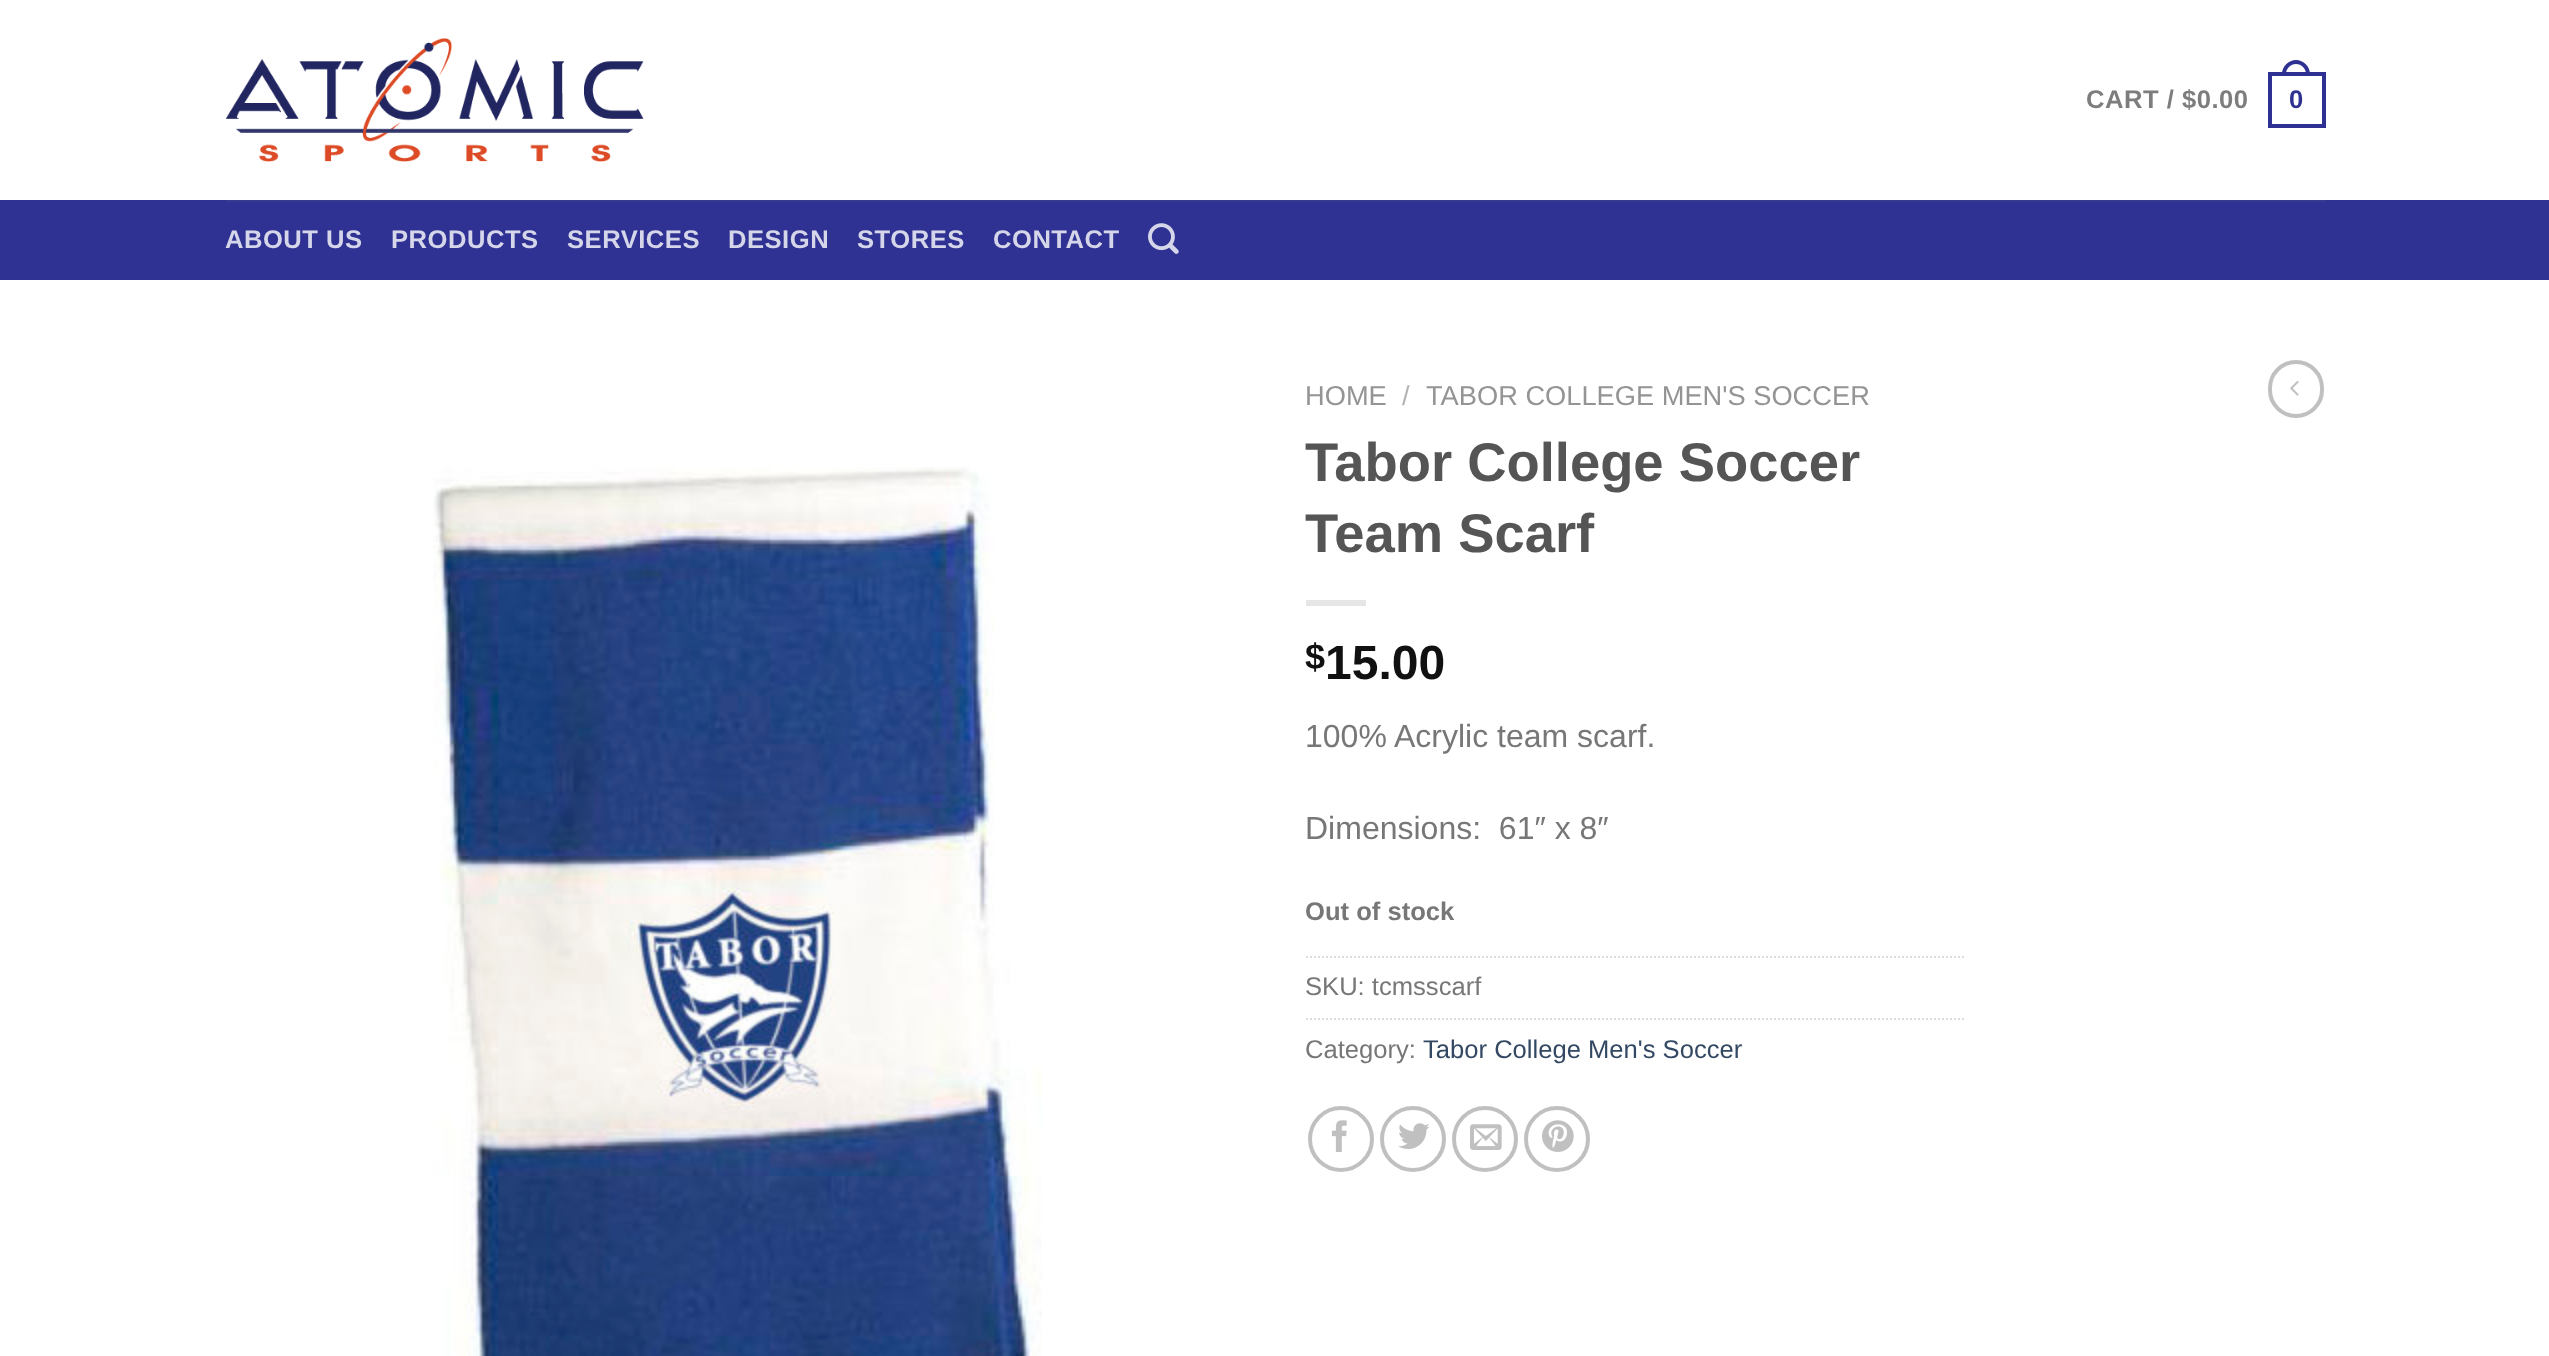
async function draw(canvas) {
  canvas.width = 2549;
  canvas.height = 1356;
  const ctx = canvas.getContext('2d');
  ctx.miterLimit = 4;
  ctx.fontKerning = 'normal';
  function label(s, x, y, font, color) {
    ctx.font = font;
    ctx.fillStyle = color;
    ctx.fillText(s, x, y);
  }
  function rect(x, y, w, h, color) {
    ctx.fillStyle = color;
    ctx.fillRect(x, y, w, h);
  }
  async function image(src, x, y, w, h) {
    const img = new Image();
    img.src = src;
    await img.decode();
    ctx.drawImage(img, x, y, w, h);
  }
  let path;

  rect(0, 0, 2549, 1356, '#fff');
  await image('assets/img1.png', 226, 38, 418, 124);
  ctx.letterSpacing = '0.5px';
  label('CART / $0.00', 2086, 108, 'bold 25.6px Liberation Sans', '#7d7d7d');
  ctx.strokeStyle = '#2e3192';
  ctx.lineWidth = 4;
  ctx.strokeRect(2270, 74, 54, 52);
  ctx.fillStyle = '#2e3192';
  path = new Path2D('M2296 60C2303.5 60 2310 66.5 2310 74V76H2282V74C2282 66.5 2288.5 60 2296 60ZM2296 64C2301.5 64 2306 68.5 2306 74V76H2286V74C2286 68.5 2290.5 64 2296 64Z');
  ctx.fill(path, 'evenodd');
  label('0', 2289, 108, 'bold 25.6px Liberation Sans', '#2e3192');
  rect(0, 200, 2549, 80, '#2f3293');
  rect(226, 200, 2100, 2, '#363990');
  label('ABOUT US', 225, 248, 'bold 25.6px Liberation Sans', '#d5d6e9');
  label('PRODUCTS', 391, 248, 'bold 25.6px Liberation Sans', '#d5d6e9');
  label('SERVICES', 567, 248, 'bold 25.6px Liberation Sans', '#d5d6e9');
  label('DESIGN', 728, 248, 'bold 25.6px Liberation Sans', '#d5d6e9');
  label('STORES', 857, 248, 'bold 25.6px Liberation Sans', '#d5d6e9');
  label('CONTACT', 993, 248, 'bold 25.6px Liberation Sans', '#d5d6e9');
  await image('assets/img2.png', 1148, 223, 31, 31);
  await image('assets/img3.png', 433, 466, 609, 890);
  ctx.letterSpacing = '0px';
  label('HOME', 1305, 405, '27.25px Liberation Sans', '#949494');
  label('/', 1402, 405, '27.25px Liberation Sans', '#b2b2b2');
  label('TABOR COLLEGE MEN\'S SOCCER', 1426, 405, '27.25px Liberation Sans', '#949494');
  label('Tabor College Soccer', 1305, 481, 'bold 54.4px Liberation Sans', '#555');
  label('Team Scarf', 1305, 552, 'bold 54.4px Liberation Sans', '#555');
  rect(1306, 600, 60, 6, '#e6e6e6');
  label('$', 1305, 669, 'bold 36px Liberation Sans', '#111');
  label('15.00', 1325, 679, 'bold 48px Liberation Sans', '#111');
  label('100% Acrylic team scarf.', 1305, 747, '32px Liberation Sans', '#777');
  label('Dimensions:  61″ x 8″', 1305, 839, '32px Liberation Sans', '#777');
  label('Out of stock', 1305, 920, 'bold 25.6px Liberation Sans', '#777');
  path = new Path2D('M1306 957H1966');
  ctx.strokeStyle = '#ddd';
  ctx.lineWidth = 2;
  ctx.setLineDash([2, 2]);
  ctx.stroke(path);
  label('SKU: tcmsscarf', 1305, 995, '25.6px Liberation Sans', '#777');
  path = new Path2D('M1306 1019H1966');
  ctx.stroke(path);
  label('Category:', 1305, 1058, '25.6px Liberation Sans', '#777');
  label('Tabor College Men\'s Soccer', 1423, 1058, '25.6px Liberation Sans', '#334862');
  ctx.beginPath();
  ctx.arc(1341, 1139, 31, 0, 2 * Math.PI);
  ctx.strokeStyle = '#c0c0c0';
  ctx.lineWidth = 4;
  ctx.setLineDash([]);
  ctx.stroke();
  await image('assets/img4.png', 1331, 1120, 16, 32);
  ctx.beginPath();
  ctx.arc(1413, 1139, 31, 0, 2 * Math.PI);
  ctx.stroke();
  await image('assets/img5.png', 1398, 1123, 32, 26);
  ctx.beginPath();
  ctx.arc(1485, 1139, 31, 0, 2 * Math.PI);
  ctx.stroke();
  await image('assets/img6.png', 1470, 1124, 32, 26);
  ctx.beginPath();
  ctx.arc(1557, 1139, 31, 0, 2 * Math.PI);
  ctx.stroke();
  await image('assets/img7.png', 1542, 1120, 32, 32);
  ctx.beginPath();
  ctx.roundRect(2270, 362, 52, 54, 26);
  ctx.stroke();
  await image('assets/img8.png', 2290, 380, 9, 16);
}

draw(document.querySelector('canvas'));
